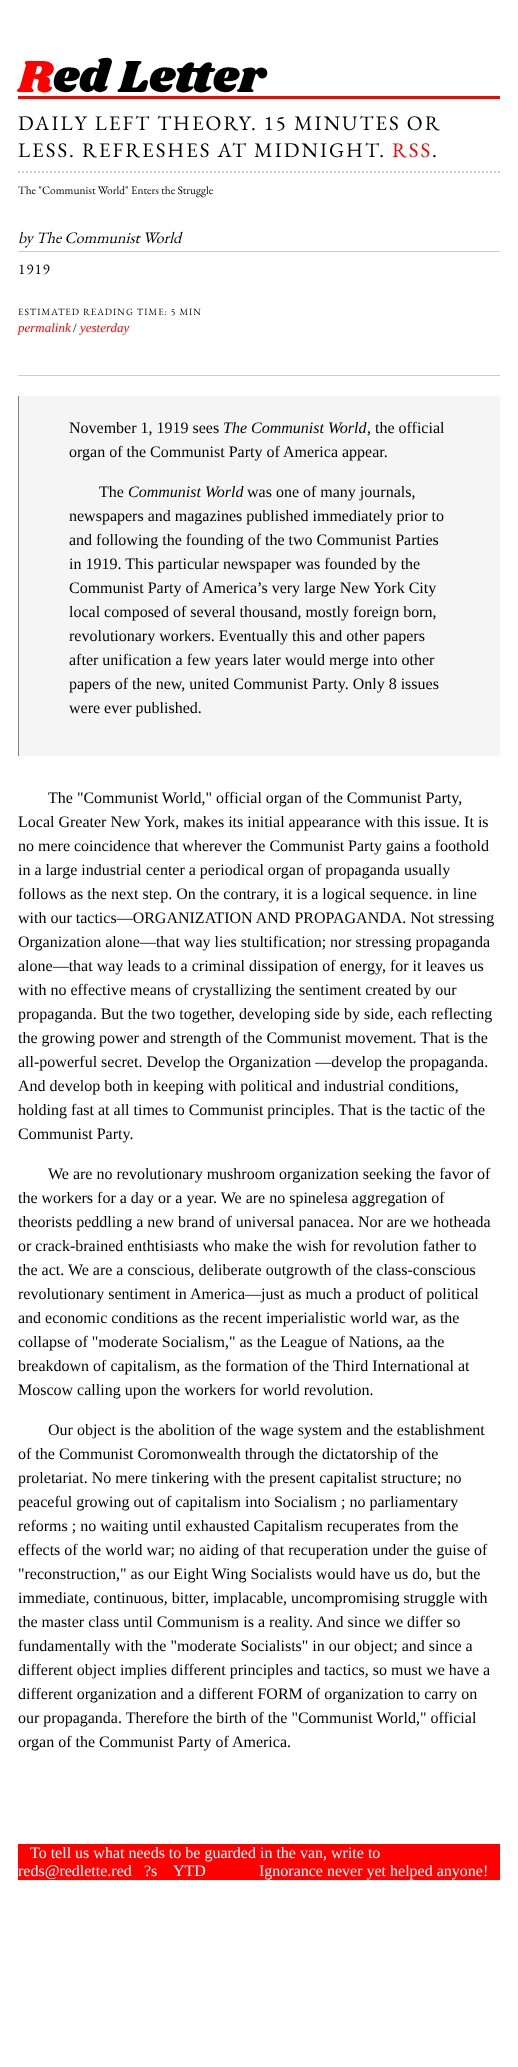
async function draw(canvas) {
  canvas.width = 518;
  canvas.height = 2067;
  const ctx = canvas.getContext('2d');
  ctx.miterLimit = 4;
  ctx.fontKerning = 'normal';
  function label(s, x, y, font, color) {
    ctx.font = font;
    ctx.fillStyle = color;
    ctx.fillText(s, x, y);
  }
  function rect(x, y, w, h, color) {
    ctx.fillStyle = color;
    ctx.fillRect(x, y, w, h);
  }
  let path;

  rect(0, 0, 518, 2067, '#fff');
  rect(18, 96, 482, 3, '#f00');
  label('R', 18, 92, '46.5px Shrikhand', '#f00');
  label('ed Letter', 53, 92, '46.5px Shrikhand', '#000');
  path = new Path2D('M18 172H500');
  ctx.strokeStyle = '#ccc';
  ctx.lineWidth = 2;
  ctx.setLineDash([2, 2]);
  ctx.stroke(path);
  ctx.letterSpacing = '2px';
  label('DAILY LEFT THEORY. 15 MINUTES OR', 18, 130, '20.75px EB Garamond', '#000');
  label('LESS. REFRESHES AT MIDNIGHT.', 18, 157, '20.75px EB Garamond', '#000');
  label('RSS', 392, 157, '20.75px EB Garamond', '#f00');
  label('.', 432, 157, '20.75px EB Garamond', '#000');
  rect(18, 375, 482, 1, '#ccc');
  ctx.letterSpacing = '0px';
  label('The "Communist World" Enters the Struggle', 18, 194, '11.4px EB Garamond', '#000');
  rect(18, 251, 482, 1, '#ccc');
  label('by The Communist World', 18, 243, 'italic 16px EB Garamond', '#000');
  ctx.letterSpacing = '1px';
  label('1919', 18, 274, '15px EB Garamond', '#000');
  label('ESTIMATED READING TIME: 5 MIN', 18, 315, '9.6px EB Garamond', '#000');
  ctx.letterSpacing = '0px';
  label('permalink', 18, 332, 'italic 13px Liberation Serif', '#f00');
  label('/', 73, 332, '13px Liberation Serif', '#000');
  label('yesterday', 80, 332, 'italic 13px Liberation Serif', '#f00');
  rect(19, 396, 481, 360, '#f5f5f5');
  rect(18, 396, 1, 360, '#808080');
  label('November 1, 1919 sees', 69, 433, '16px Liberation Serif', '#000');
  label('The Communist World', 223, 433, 'italic 16px Liberation Serif', '#000');
  label(', the official', 367, 433, '16px Liberation Serif', '#000');
  label('organ of the Communist Party of America appear.', 69, 457, '16px Liberation Serif', '#000');
  label('The', 99, 497, '16px Liberation Serif', '#000');
  label('Communist World', 128, 497, 'italic 16px Liberation Serif', '#000');
  label('was one of many journals,', 247, 497, '16px Liberation Serif', '#000');
  label('newspapers and magazines published immediately prior to', 69, 521, '16px Liberation Serif', '#000');
  label('and following the founding of the two Communist Parties', 69, 545, '16px Liberation Serif', '#000');
  label('in 1919. This particular newspaper was founded by the', 69, 569, '16px Liberation Serif', '#000');
  label('Communist Party of America’s very large New York City', 69, 593, '16px Liberation Serif', '#000');
  label('local composed of several thousand, mostly foreign born,', 69, 617, '16px Liberation Serif', '#000');
  label('revolutionary workers. Eventually this and other papers', 69, 641, '16px Liberation Serif', '#000');
  label('after unification a few years later would merge into other', 69, 665, '16px Liberation Serif', '#000');
  label('papers of the new, united Communist Party. Only 8 issues', 69, 689, '16px Liberation Serif', '#000');
  label('were ever published.', 69, 713, '16px Liberation Serif', '#000');
  label('The "Communist World," official organ of the Communist Party,', 48, 803, '16px Liberation Serif', '#000');
  label('Local Greater New York, makes its initial appearance with this issue. It is', 18, 827, '16px Liberation Serif', '#000');
  label('no mere coincidence that wherever the Communist Party gains a foothold', 18, 851, '16px Liberation Serif', '#000');
  label('in a large industrial center a periodical organ of propaganda usually', 18, 875, '16px Liberation Serif', '#000');
  label('follows as the next step. On the contrary, it is a logical sequence. in line', 18, 899, '16px Liberation Serif', '#000');
  label('with our tactics—ORGANIZATION AND PROPAGANDA. Not stressing', 18, 923, '16px Liberation Serif', '#000');
  label('Organization alone—that way lies stultification; nor stressing propaganda', 18, 947, '16px Liberation Serif', '#000');
  label('alone—that way leads to a criminal dissipation of energy, for it leaves us', 18, 971, '16px Liberation Serif', '#000');
  label('with no effective means of crystallizing the sentiment created by our', 18, 995, '16px Liberation Serif', '#000');
  label('propaganda. But the two together, developing side by side, each reflecting', 18, 1019, '16px Liberation Serif', '#000');
  label('the growing power and strength of the Communist movement. That is the', 18, 1043, '16px Liberation Serif', '#000');
  label('all-powerful secret. Develop the Organization —develop the propaganda.', 18, 1067, '16px Liberation Serif', '#000');
  label('And develop both in keeping with political and industrial conditions,', 18, 1091, '16px Liberation Serif', '#000');
  label('holding fast at all times to Communist principles. That is the tactic of the', 18, 1115, '16px Liberation Serif', '#000');
  label('Communist Party.', 18, 1139, '16px Liberation Serif', '#000');
  label('We are no revolutionary mushroom organization seeking the favor of', 48, 1179, '16px Liberation Serif', '#000');
  label('the workers for a day or a year. We are no spinelesa aggregation of', 18, 1203, '16px Liberation Serif', '#000');
  label('theorists peddling a new brand of universal panacea. Nor are we hotheada', 18, 1227, '16px Liberation Serif', '#000');
  label('or crack-brained enthtisiasts who make the wish for revolution father to', 18, 1251, '16px Liberation Serif', '#000');
  label('the act. We are a conscious, deliberate outgrowth of the class-conscious', 18, 1275, '16px Liberation Serif', '#000');
  label('revolutionary sentiment in America—just as much a product of political', 18, 1299, '16px Liberation Serif', '#000');
  label('and economic conditions as the recent imperialistic world war, as the', 18, 1323, '16px Liberation Serif', '#000');
  label('collapse of "moderate Socialism," as the League of Nations, aa the', 18, 1347, '16px Liberation Serif', '#000');
  label('breakdown of capitalism, as the formation of the Third International at', 18, 1371, '16px Liberation Serif', '#000');
  label('Moscow calling upon the workers for world revolution.', 18, 1395, '16px Liberation Serif', '#000');
  label('Our object is the abolition of the wage system and the establishment', 48, 1435, '16px Liberation Serif', '#000');
  label('of the Communist Coromonwealth through the dictatorship of the', 18, 1459, '16px Liberation Serif', '#000');
  label('proletariat. No mere tinkering with the present capitalist structure; no', 18, 1483, '16px Liberation Serif', '#000');
  label('peaceful growing out of capitalism into Socialism ; no parliamentary', 18, 1507, '16px Liberation Serif', '#000');
  label('reforms ; no waiting until exhausted Capitalism recuperates from the', 18, 1531, '16px Liberation Serif', '#000');
  label('effects of the world war; no aiding of that recuperation under the guise of', 18, 1555, '16px Liberation Serif', '#000');
  label('"reconstruction," as our Eight Wing Socialists would have us do, but the', 18, 1579, '16px Liberation Serif', '#000');
  label('immediate, continuous, bitter, implacable, uncompromising struggle with', 18, 1603, '16px Liberation Serif', '#000');
  label('the master class until Communism is a reality. And since we differ so', 18, 1627, '16px Liberation Serif', '#000');
  label('fundamentally with the "moderate Socialists" in our object; and since a', 18, 1651, '16px Liberation Serif', '#000');
  label('different object implies different principles and tactics, so must we have a', 18, 1675, '16px Liberation Serif', '#000');
  label('different organization and a different FORM of organization to carry on', 18, 1699, '16px Liberation Serif', '#000');
  label('our propaganda. Therefore the birth of the "Communist World," official', 18, 1723, '16px Liberation Serif', '#000');
  label('organ of the Communist Party of America.', 18, 1747, '16px Liberation Serif', '#000');
  rect(18, 1844, 482, 36, '#f00');
  label('To tell us what needs to be guarded in the van, write to', 30, 1858, '16px Liberation Serif', '#fff');
  label('reds@redlette.red', 18, 1876, '16px Liberation Serif', '#fff');
  label('?s', 144, 1876, '16px Liberation Serif', '#fff');
  label('YTD', 173, 1876, '16px Liberation Serif', '#fff');
  label('Ignorance never yet helped anyone!', 259, 1876, '16px Liberation Serif', '#fff');
}

draw(document.querySelector('canvas'));
